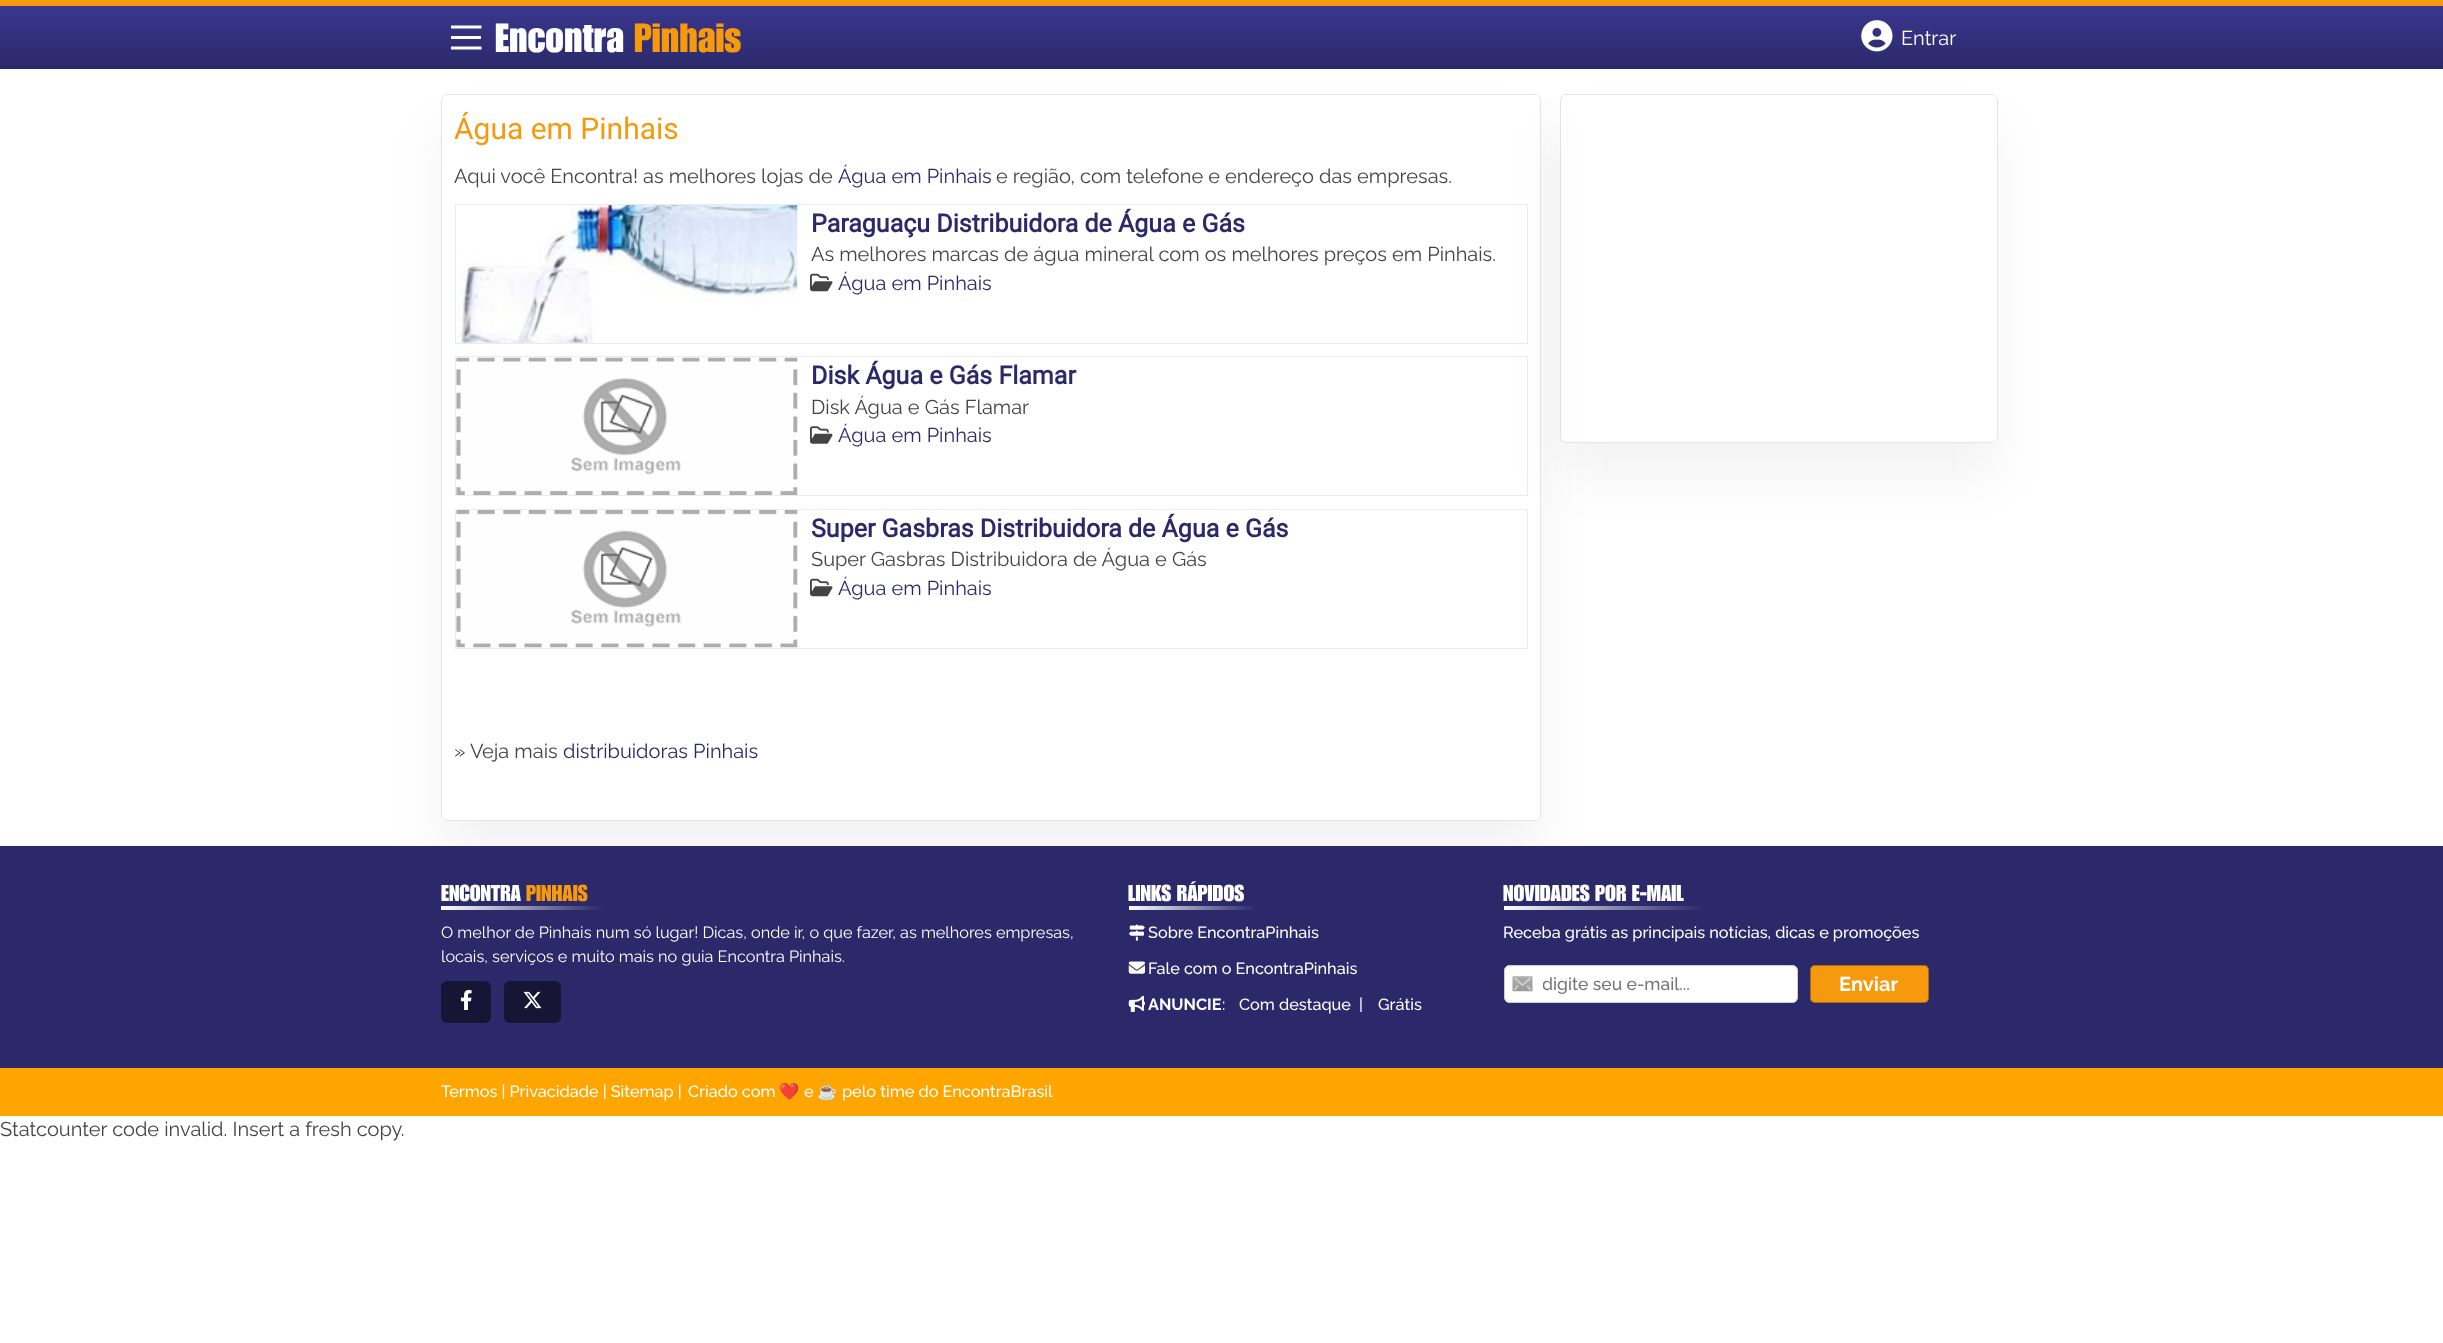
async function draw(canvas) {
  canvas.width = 2443;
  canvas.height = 1343;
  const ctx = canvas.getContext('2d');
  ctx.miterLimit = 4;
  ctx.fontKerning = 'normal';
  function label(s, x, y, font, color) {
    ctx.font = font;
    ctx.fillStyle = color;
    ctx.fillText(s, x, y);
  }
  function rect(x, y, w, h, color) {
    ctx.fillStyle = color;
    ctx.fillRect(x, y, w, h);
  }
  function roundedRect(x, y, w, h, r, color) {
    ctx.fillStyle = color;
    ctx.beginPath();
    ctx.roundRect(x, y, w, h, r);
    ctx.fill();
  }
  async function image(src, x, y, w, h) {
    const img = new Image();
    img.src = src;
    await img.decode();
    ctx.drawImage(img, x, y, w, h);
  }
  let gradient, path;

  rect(0, 0, 2443, 1343, '#fff');
  ctx.save();
  path = new Path2D('M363 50H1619V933H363ZM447 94H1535C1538.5 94 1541 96.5 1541 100V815C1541 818.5 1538.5 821 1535 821H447C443.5 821 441 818.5 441 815V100C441 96.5 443.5 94 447 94Z');
  ctx.clip(path, 'evenodd');
  ctx.fillStyle = '#0000000d';
  ctx.filter = 'blur(25.5px)';
  ctx.beginPath();
  ctx.roundRect(441, 128, 1100, 727, 6);
  ctx.fill();
  ctx.filter = 'none';
  ctx.restore();
  ctx.beginPath();
  ctx.roundRect(441.5, 94.5, 1099, 726, 5.5);
  ctx.strokeStyle = '#0000001a';
  ctx.stroke();
  ctx.save();
  path = new Path2D('M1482 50H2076V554H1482ZM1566 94H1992C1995.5 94 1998 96.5 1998 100V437C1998 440.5 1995.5 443 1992 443H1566C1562.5 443 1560 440.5 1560 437V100C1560 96.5 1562.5 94 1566 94Z');
  ctx.clip(path, 'evenodd');
  ctx.fillStyle = '#0000000d';
  ctx.filter = 'blur(25.5px)';
  ctx.beginPath();
  ctx.roundRect(1560, 128, 438, 348, 6);
  ctx.fill();
  ctx.filter = 'none';
  ctx.restore();
  gradient = ctx.createLinearGradient(1222, 6.2, 1222, 69);
  gradient.addColorStop(0, '#3a378f');
  gradient.addColorStop(1, '#2b296a');
  ctx.fillStyle = gradient;
  ctx.fillRect(0, 6, 2443, 63);
  rect(0, 0, 2443, 6, '#f6990d');
  path = new Path2D('M451 27H481.5');
  ctx.strokeStyle = '#fefefe';
  ctx.lineWidth = 3;
  ctx.stroke(path);
  rect(451, 36, 30, 3, '#fefefe');
  path = new Path2D('M451 48H481.5');
  ctx.stroke(path);
  label('Encontra', 495, 52, '500 40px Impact', '#fefefe');
  label('Pinhais', 634, 52, '500 40px Impact', '#f6990d');
  await image('assets/img1.png', 1861, 20, 32, 32);
  label('Entrar', 1901, 45, '20px Raleway', '#fefefe');
  label('Água em Pinhais', 454, 139, '30px Roboto', '#f6990d');
  label('Aqui você Encontra! as melhores lojas de', 454, 183, '20px Raleway', '#444');
  label('Água em Pinhais', 838, 183, '20px Raleway', '#2b296a');
  label('e região, com telefone e endereço das empresas.', 996, 183, '20px Raleway', '#444');
  ctx.strokeStyle = '#eaeaf0';
  ctx.lineWidth = 1;
  ctx.strokeRect(455.5, 204.5, 1072, 139);
  await image('assets/img2.png', 456, 205, 342, 138);
  label('Paraguaçu Distribuidora de Água e Gás', 811, 232, 'bold 25px Roboto', '#2b296a');
  label('As melhores marcas de água mineral com os melhores preços em Pinhais.', 811, 261, '20px Raleway', '#444');
  await image('assets/img3.png', 810, 273, 23, 19);
  label('Água em Pinhais', 838, 290, '20px Raleway', '#2b296a');
  ctx.strokeRect(455.5, 356.5, 1072, 139);
  await image('assets/img4.png', 456, 357, 342, 138);
  label('Disk Água e Gás Flamar', 811, 384, 'bold 25px Roboto', '#2b296a');
  label('Disk Água e Gás Flamar', 811, 414, '20px Raleway', '#444');
  await image('assets/img5.png', 810, 426, 23, 18);
  label('Água em Pinhais', 838, 442, '20px Raleway', '#2b296a');
  ctx.strokeRect(455.5, 509.5, 1072, 139);
  await image('assets/img6.png', 456, 510, 342, 138);
  label('Super Gasbras Distribuidora de Água e Gás', 811, 537, 'bold 25px Roboto', '#2b296a');
  label('Super Gasbras Distribuidora de Água e Gás', 811, 566, '20px Raleway', '#444');
  await image('assets/img3.png', 810, 578, 23, 19);
  label('Água em Pinhais', 838, 595, '20px Raleway', '#2b296a');
  label('» Veja mais', 454, 758, '20px Raleway', '#444');
  label('distribuidoras Pinhais', 563, 758, '20px Raleway', '#2b296a');
  ctx.beginPath();
  ctx.roundRect(1560.5, 94.5, 437, 348, 5.5);
  ctx.strokeStyle = '#0000001a';
  ctx.stroke();
  rect(0, 846, 2443, 222, '#2b296a');
  label('ENCONTRA', 441, 901, '500 22.5px Impact', '#fefefe');
  label('PINHAIS', 526, 901, '500 22.5px Impact', '#f6990d');
  gradient = ctx.createLinearGradient(441, 908, 603, 908);
  gradient.addColorStop(0, '#fff');
  gradient.addColorStop(1, '#2b296a');
  ctx.fillStyle = gradient;
  ctx.fillRect(441, 906, 162, 4);
  label('O melhor de Pinhais num só lugar! Dicas, onde ir, o que fazer, as melhores empresas,', 441, 938, '16.25px Raleway', '#fefefe');
  label('locais, serviços e muito mais no guia Encontra Pinhais.', 441, 962, '16.25px Raleway', '#fefefe');
  roundedRect(441, 981, 50, 42, 6, '#161535');
  await image('assets/img7.png', 460, 990, 12, 20);
  roundedRect(504, 981, 57, 42, 6, '#161535');
  await image('assets/img8.png', 523, 991, 19, 18);
  label('LINKS RÁPIDOS', 1128, 901, '500 22.5px Impact', '#fefefe');
  gradient = ctx.createLinearGradient(1129, 908, 1256, 908);
  gradient.addColorStop(0, '#fff');
  gradient.addColorStop(1, '#2b296a');
  ctx.fillStyle = gradient;
  ctx.fillRect(1129, 906, 127, 4);
  await image('assets/img9.png', 1129, 924, 16, 17);
  label('Sobre EncontraPinhais', 1148, 938, '500 16.25px Raleway', '#fefefe');
  await image('assets/img10.png', 1128, 961, 17, 13);
  label('Fale com o EncontraPinhais', 1148, 974, '500 16.25px Raleway', '#fefefe');
  await image('assets/img11.png', 1128, 995, 17, 17);
  label('ANUNCIE', 1148, 1010, 'bold 16.25px Raleway', '#fefefe');
  label(':', 1222, 1010, '500 16.25px Raleway', '#fefefe');
  label('Com destaque', 1239, 1010, '500 16.25px Raleway', '#fefefe');
  label('|', 1359, 1010, '500 16.25px Raleway', '#fefefe');
  label('Grátis', 1378, 1010, '500 16.25px Raleway', '#fefefe');
  label('NOVIDADES POR E-MAIL', 1503, 901, '500 22.5px Impact', '#fefefe');
  gradient = ctx.createLinearGradient(1504, 908, 1703, 908);
  gradient.addColorStop(0, '#fff');
  gradient.addColorStop(1, '#2b296a');
  ctx.fillStyle = gradient;
  ctx.fillRect(1504, 906, 199, 4);
  label('Receba grátis as principais notícias, dicas e promoções', 1503, 938, '500 16.25px Raleway', '#fefefe');
  roundedRect(1504, 965, 294, 38, 6, '#fff');
  await image('assets/img12.png', 1512, 976, 21, 16);
  ctx.beginPath();
  ctx.roundRect(1504.5, 965.5, 293, 37, 5.5);
  ctx.strokeStyle = '#ccc';
  ctx.stroke();
  ctx.save();
  ctx.beginPath();
  ctx.rect(1543, 974, 253, 20);
  ctx.clip();
  label('digite seu e-mail...', 1542, 990, '500 17.5px Raleway', '#757575');
  ctx.restore();
  roundedRect(1810, 965, 119, 38, 5, '#f6990d');
  ctx.beginPath();
  ctx.roundRect(1810.5, 965.5, 118, 37, 4.5);
  ctx.strokeStyle = '#0000004d';
  ctx.stroke();
  label('Enviar', 1839, 991, 'bold 20px Raleway', '#fefefe');
  rect(0, 1068, 2443, 48, '#ffa500');
  label('Termos | Privacidade | Sitemap |', 441, 1097, '500 16.25px Raleway', '#fefefe');
  label('Criado com', 688, 1097, '500 16.25px Raleway', '#fefefe');
  label('❤️', 779, 1097, '16.25px Noto Color Emoji', '#fefefe');
  label('e', 804, 1097, '500 16.25px Raleway', '#fefefe');
  label('☕', 817, 1097, '16.25px Noto Color Emoji', '#fefefe');
  label('pelo time do EncontraBrasil', 842, 1097, '500 16.25px Raleway', '#fefefe');
  label('Statcounter code invalid. Insert a fresh copy.', 0, 1136, '20px Raleway', '#444');
}

draw(document.querySelector('canvas'));
